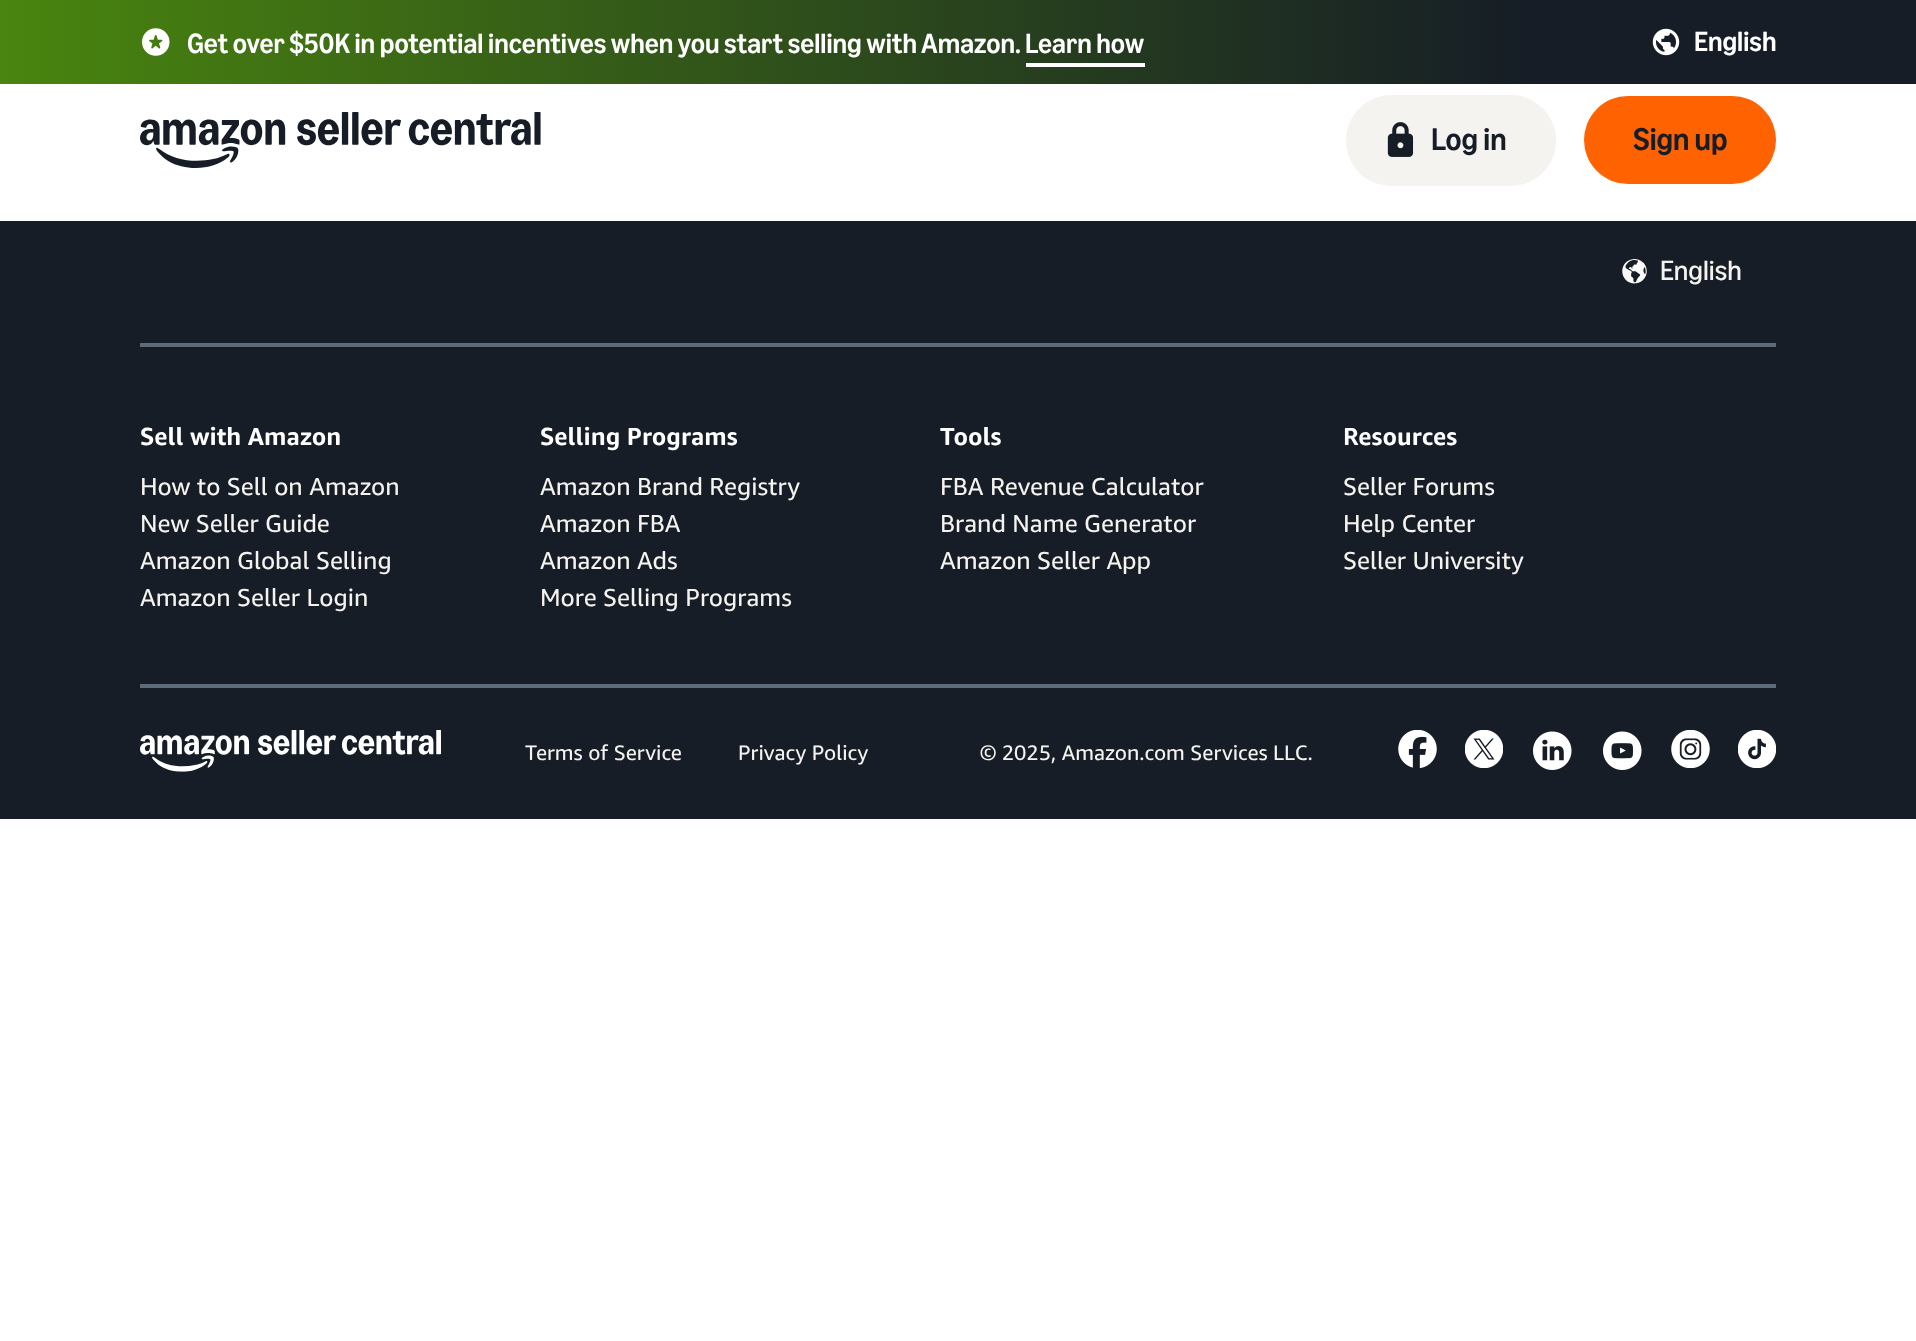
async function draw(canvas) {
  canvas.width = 1916;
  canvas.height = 1341;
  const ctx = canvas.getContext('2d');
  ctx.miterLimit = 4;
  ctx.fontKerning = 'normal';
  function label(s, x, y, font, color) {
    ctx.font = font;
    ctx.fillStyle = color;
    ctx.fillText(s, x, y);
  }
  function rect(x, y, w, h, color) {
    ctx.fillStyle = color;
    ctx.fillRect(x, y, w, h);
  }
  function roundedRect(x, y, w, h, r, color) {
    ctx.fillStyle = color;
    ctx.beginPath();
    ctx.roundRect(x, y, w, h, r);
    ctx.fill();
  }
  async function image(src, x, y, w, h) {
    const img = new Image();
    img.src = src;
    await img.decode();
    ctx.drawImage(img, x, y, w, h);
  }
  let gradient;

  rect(0, 0, 1916, 1341, '#fff');
  gradient = ctx.createLinearGradient(0, 42, 1916, 42);
  gradient.addColorStop(0, '#49850f');
  gradient.addColorStop(0.8, '#161d26');
  ctx.fillStyle = gradient;
  ctx.fillRect(0, 0, 1916, 84);
  await image('assets/img1.png', 142, 28, 28, 28);
  label('Get over $50K in potential incentives when you start selling with Amazon. Learn how', 187, 53, '500 28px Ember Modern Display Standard', '#fff');
  rect(1026, 63, 119, 4, '#fff');
  await image('assets/img2.png', 1652, 28, 28, 28);
  label('English', 1694, 51, '500 28px Ember Modern Display Standard', '#fff');
  await image('assets/img3.png', 140, 112, 401, 56);
  roundedRect(1346, 95, 210, 91, 45.5, '#f5f3ef');
  await image('assets/img4.png', 1387, 122, 27, 35);
  label('Log in', 1431, 150, '500 31.5px Ember Modern Display Standard', '#161d26');
  roundedRect(1584, 96, 192, 88, 44, '#ff6200');
  label('Sign up', 1633, 150, '500 31.5px Ember Modern Display Standard', '#161d26');
  rect(0, 221, 1916, 598, '#161d26');
  await image('assets/img5.png', 1622, 259, 25, 25);
  label('English', 1660, 280, '28px Ember Modern Display Standard', '#f5f3ef');
  rect(140, 343, 1636, 4, '#5e6a78');
  rect(140, 684, 1636, 4, '#5e6a78');
  label('Sell with Amazon', 140, 445, 'bold 24.5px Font', '#fff');
  label('How to Sell on Amazon', 140, 495, '24.5px Font', '#f5f3ef');
  label('New Seller Guide', 140, 532, '24.5px Font', '#f5f3ef');
  label('Amazon Global Selling', 140, 569, '24.5px Font', '#f5f3ef');
  label('Amazon Seller Login', 140, 606, '24.5px Font', '#f5f3ef');
  label('Selling Programs', 540, 445, 'bold 24.5px Font', '#fff');
  label('Amazon Brand Registry', 540, 495, '24.5px Font', '#f5f3ef');
  label('Amazon FBA', 540, 532, '24.5px Font', '#f5f3ef');
  label('Amazon Ads', 540, 569, '24.5px Font', '#f5f3ef');
  label('More Selling Programs', 540, 606, '24.5px Font', '#f5f3ef');
  label('Tools', 940, 445, 'bold 24.5px Font', '#fff');
  label('FBA Revenue Calculator', 940, 495, '24.5px Font', '#f5f3ef');
  label('Brand Name Generator', 940, 532, '24.5px Font', '#f5f3ef');
  label('Amazon Seller App', 940, 569, '24.5px Font', '#f5f3ef');
  label('Resources', 1343, 445, 'bold 24.5px Font', '#fff');
  label('Seller Forums', 1343, 495, '24.5px Font', '#f5f3ef');
  label('Help Center', 1343, 532, '24.5px Font', '#f5f3ef');
  label('Seller University', 1343, 569, '24.5px Font', '#f5f3ef');
  await image('assets/img6.png', 140, 730, 301, 42);
  label('Terms of Service', 525, 760, '21px Font', '#f5f3ef');
  label('Privacy Policy', 738, 760, '21px Font', '#f5f3ef');
  label('© 2025, Amazon.com Services LLC.', 980, 760, '21px Font', '#f5f3ef');
  await image('assets/img7.png', 1398, 730, 39, 38);
  await image('assets/img8.png', 1465, 730, 38, 38);
  await image('assets/img9.png', 1533, 731, 39, 39);
  await image('assets/img10.png', 1603, 731, 39, 39);
  await image('assets/img11.png', 1671, 730, 39, 38);
  await image('assets/img12.png', 1738, 730, 38, 38);
}

draw(document.querySelector('canvas'));
